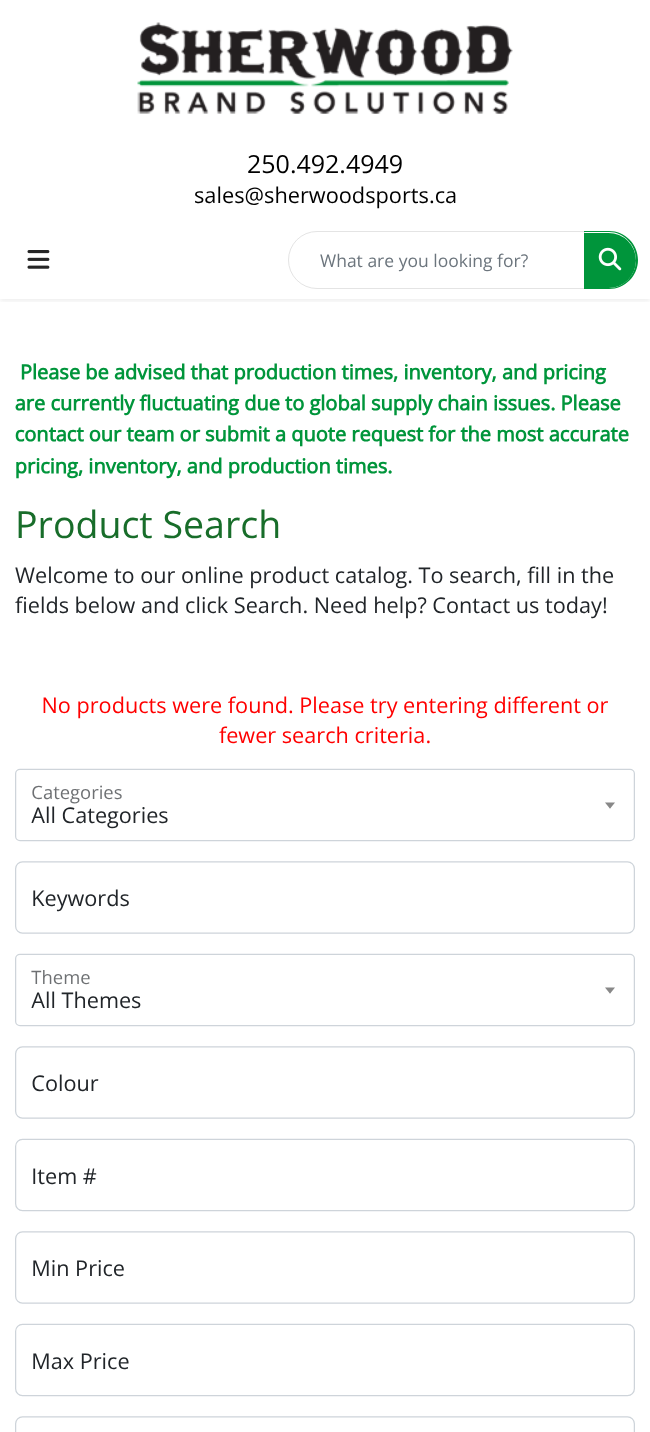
async function draw(canvas) {
  canvas.width = 650;
  canvas.height = 1432;
  const ctx = canvas.getContext('2d');
  ctx.miterLimit = 4;
  ctx.fontKerning = 'normal';
  function label(s, x, y, font, color) {
    ctx.font = font;
    ctx.fillStyle = color;
    ctx.fillText(s, x, y);
  }
  function rect(x, y, w, h, color) {
    ctx.fillStyle = color;
    ctx.fillRect(x, y, w, h);
  }
  async function image(src, x, y, w, h) {
    const img = new Image();
    img.src = src;
    await img.decode();
    ctx.drawImage(img, x, y, w, h);
  }
  let path;

  rect(0, 0, 650, 1432, '#fff');
  await image('assets/img1.png', 137, 22, 376, 92);
  label('250.492.4949', 247, 173, '25px Open Sans', '#000');
  label('sales@sherwoodsports.ca', 194, 203, '21.75px Open Sans', '#000');
  ctx.save();
  ctx.beginPath();
  ctx.rect(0, 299, 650, 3);
  ctx.clip();
  ctx.fillStyle = '#00000012';
  ctx.filter = 'blur(2.5px)';
  ctx.beginPath();
  ctx.rect(0, 224, 650, 77);
  ctx.fill();
  ctx.filter = 'none';
  ctx.restore();
  await image('assets/img2.png', 27, 250, 23, 19);
  ctx.beginPath();
  ctx.roundRect(288.5, 231.5, 296, 57, [28.5, 0, 0, 28.5]);
  ctx.strokeStyle = '#e4e4e4';
  ctx.stroke();
  label('What are you looking for?', 320, 267, '17.5px Open Sans', '#6c757d');
  ctx.fillStyle = '#00953b';
  ctx.beginPath();
  ctx.roundRect(584, 233, 52, 55, [0, 27.5, 27.5, 0]);
  ctx.fill();
  path = new Path2D('M584 231H609C625 231 638 244 638 260C638 276 625 289 609 289H584ZM584 232H609C624 232 636 245 636 260C636 275 624 288 609 288H584Z');
  ctx.fill(path, 'evenodd');
  await image('assets/img3.png', 598, 247, 24, 24);
  await image('assets/img4.png', 15, 363, 620, 1069);
}

draw(document.querySelector('canvas'));
